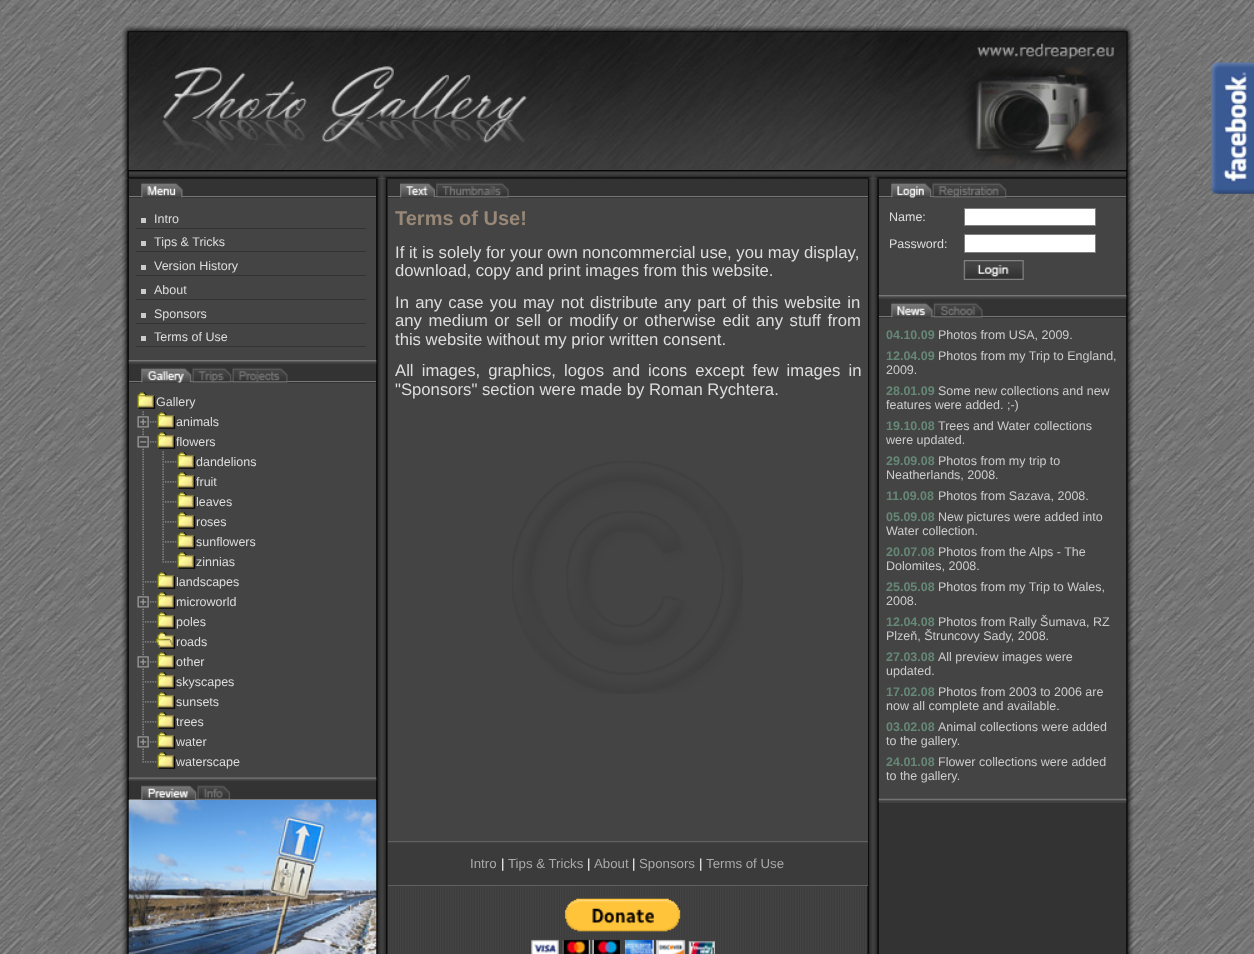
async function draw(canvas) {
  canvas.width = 1254;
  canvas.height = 954;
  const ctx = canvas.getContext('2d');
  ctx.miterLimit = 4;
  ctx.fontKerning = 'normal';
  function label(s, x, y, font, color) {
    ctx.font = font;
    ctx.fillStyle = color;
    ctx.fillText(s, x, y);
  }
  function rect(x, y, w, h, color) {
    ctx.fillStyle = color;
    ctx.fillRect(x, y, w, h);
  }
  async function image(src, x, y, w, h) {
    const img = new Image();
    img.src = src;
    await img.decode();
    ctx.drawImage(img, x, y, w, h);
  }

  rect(0, 0, 1254, 954, '#fff');
  await image('assets/img1.png', 0, 0, 1254, 954);
  await image('assets/img5.png', 121, 178, 1013, 776);
  await image('assets/img2.png', 122, 25, 1011, 154);
  await image('assets/img3.png', 128, 32, 999, 138);
  await image('assets/img4.png', 1211, 62, 43, 132);
  rect(129, 198, 247, 580, '#444');
  rect(129, 196, 247, 1, '#777');
  await image('assets/img6.png', 141, 182, 42, 16);
  rect(141, 218, 5, 5, '#ccc');
  rect(136, 228, 230, 1, '#333');
  label('Intro', 154, 223, '12.5px Liberation Sans', '#ddd');
  rect(141, 241, 5, 5, '#ccc');
  rect(136, 251, 230, 1, '#333');
  label('Tips & Tricks', 154, 246, '12.5px Liberation Sans', '#ddd');
  rect(141, 265, 5, 5, '#ccc');
  rect(136, 275, 230, 1, '#333');
  label('Version History', 154, 270, '12.5px Liberation Sans', '#ddd');
  rect(141, 289, 5, 5, '#ccc');
  rect(136, 299, 230, 1, '#333');
  label('About', 154, 294, '12.5px Liberation Sans', '#ddd');
  rect(141, 313, 5, 5, '#ccc');
  rect(136, 323, 230, 1, '#333');
  label('Sponsors', 154, 318, '12.5px Liberation Sans', '#ddd');
  rect(141, 336, 5, 5, '#ccc');
  rect(136, 346, 230, 1, '#333');
  label('Terms of Use', 154, 341, '12.5px Liberation Sans', '#ddd');
  await image('assets/img7.png', 128, 360, 249, 4);
  rect(129, 364, 247, 19, '#333');
  rect(129, 381, 247, 1, '#777');
  await image('assets/img8.png', 141, 367, 51, 16);
  await image('assets/img9.png', 192, 367, 40, 16);
  await image('assets/img10.png', 232, 367, 56, 16);
  await image('assets/img11.png', 137, 392, 19, 17);
  label('Gallery', 156, 406, '12.5px Liberation Sans', '#ddd');
  await image('assets/img12.png', 137, 411, 20, 19);
  await image('assets/img11.png', 157, 412, 19, 17);
  label('animals', 176, 426, '12.5px Liberation Sans', '#ddd');
  await image('assets/img13.png', 137, 431, 20, 19);
  await image('assets/img11.png', 157, 432, 19, 17);
  label('flowers', 176, 446, '12.5px Liberation Sans', '#ddd');
  await image('assets/img14.png', 142, 451, 2, 19);
  await image('assets/img15.png', 162, 451, 15, 19);
  await image('assets/img11.png', 177, 452, 19, 17);
  label('dandelions', 196, 466, '12.5px Liberation Sans', '#ddd');
  await image('assets/img14.png', 142, 471, 2, 19);
  await image('assets/img15.png', 162, 471, 15, 19);
  await image('assets/img11.png', 177, 472, 19, 17);
  label('fruit', 196, 486, '12.5px Liberation Sans', '#ddd');
  await image('assets/img14.png', 142, 491, 2, 19);
  await image('assets/img15.png', 162, 491, 15, 19);
  await image('assets/img11.png', 177, 492, 19, 17);
  label('leaves', 196, 506, '12.5px Liberation Sans', '#ddd');
  await image('assets/img14.png', 142, 511, 2, 19);
  await image('assets/img15.png', 162, 511, 15, 19);
  await image('assets/img11.png', 177, 512, 19, 17);
  label('roses', 196, 526, '12.5px Liberation Sans', '#ddd');
  await image('assets/img14.png', 142, 531, 2, 19);
  await image('assets/img15.png', 162, 531, 15, 19);
  await image('assets/img11.png', 177, 532, 19, 17);
  label('sunflowers', 196, 546, '12.5px Liberation Sans', '#ddd');
  await image('assets/img14.png', 142, 551, 2, 19);
  await image('assets/img16.png', 162, 551, 15, 12);
  await image('assets/img11.png', 177, 552, 19, 17);
  label('zinnias', 196, 566, '12.5px Liberation Sans', '#ddd');
  await image('assets/img15.png', 142, 571, 15, 19);
  await image('assets/img11.png', 157, 572, 19, 17);
  label('landscapes', 176, 586, '12.5px Liberation Sans', '#ddd');
  await image('assets/img12.png', 137, 591, 20, 19);
  await image('assets/img11.png', 157, 592, 19, 17);
  label('microworld', 176, 606, '12.5px Liberation Sans', '#ddd');
  await image('assets/img15.png', 142, 611, 15, 19);
  await image('assets/img11.png', 157, 612, 19, 17);
  label('poles', 176, 626, '12.5px Liberation Sans', '#ddd');
  await image('assets/img15.png', 142, 631, 15, 19);
  await image('assets/img17.png', 156, 632, 20, 17);
  label('roads', 176, 646, '12.5px Liberation Sans', '#ddd');
  await image('assets/img12.png', 137, 651, 20, 19);
  await image('assets/img11.png', 157, 652, 19, 17);
  label('other', 176, 666, '12.5px Liberation Sans', '#ddd');
  await image('assets/img15.png', 142, 671, 15, 19);
  await image('assets/img11.png', 157, 672, 19, 17);
  label('skyscapes', 176, 686, '12.5px Liberation Sans', '#ddd');
  await image('assets/img15.png', 142, 691, 15, 19);
  await image('assets/img11.png', 157, 692, 19, 17);
  label('sunsets', 176, 706, '12.5px Liberation Sans', '#ddd');
  await image('assets/img15.png', 142, 711, 15, 19);
  await image('assets/img11.png', 157, 712, 19, 17);
  label('trees', 176, 726, '12.5px Liberation Sans', '#ddd');
  await image('assets/img12.png', 137, 731, 20, 19);
  await image('assets/img11.png', 157, 732, 19, 17);
  label('water', 176, 746, '12.5px Liberation Sans', '#ddd');
  await image('assets/img16.png', 142, 751, 15, 12);
  await image('assets/img11.png', 157, 752, 19, 17);
  label('waterscape', 176, 766, '12.5px Liberation Sans', '#ddd');
  await image('assets/img18.png', 128, 777, 249, 4);
  rect(129, 799, 247, 1, '#777');
  await image('assets/img19.png', 141, 785, 56, 15);
  await image('assets/img20.png', 197, 785, 33, 14);
  await image('assets/img21.png', 128, 800, 249, 154);
  rect(389, 198, 479, 645, '#444');
  rect(388, 179, 480, 19, '#333');
  rect(388, 196, 480, 1, '#777');
  await image('assets/img22.png', 400, 182, 35, 16);
  await image('assets/img23.png', 436, 182, 73, 16);
  label('Terms of Use!', 395, 225, 'bold 20px Liberation Sans', '#987');
  label('If it is solely for your own noncommercial use, you may display,', 395, 258, '16.7px Liberation Sans', '#ddd');
  label('download, copy and print images from this website.', 395, 276, '16.7px Liberation Sans', '#ddd');
  ctx.wordSpacing = '1.6px';
  label('In any case you may not distribute any part of this website in', 395, 308, '16.7px Liberation Sans', '#ddd');
  ctx.wordSpacing = '2px';
  label('any medium or sell or modify', 395, 326, '16.7px Liberation Sans', '#ddd');
  label('or otherwise edit any stuff from', 623, 326, '16.7px Liberation Sans', '#ddd');
  ctx.wordSpacing = '0px';
  label('this website without my prior written consent.', 395, 345, '16.7px Liberation Sans', '#ddd');
  ctx.wordSpacing = '3.5px';
  label('All images, graphics, logos and icons except few images in', 395, 376, '16.7px Liberation Sans', '#ddd');
  ctx.wordSpacing = '0px';
  label('"Sponsors" section were made by Roman Rychtera.', 395, 395, '16.7px Liberation Sans', '#ddd');
  await image('assets/img24.png', 512, 461, 231, 233);
  rect(388, 841, 480, 1, '#606060');
  rect(388, 843, 480, 42, '#3b3b3b');
  rect(388, 885, 480, 1, '#606060');
  label('Intro', 470, 868, '13.25px Liberation Sans', '#aaa');
  label('|', 501, 868, '13.25px Liberation Sans', '#fff');
  label('Tips & Tricks', 508, 868, '13.25px Liberation Sans', '#aaa');
  label('|', 587, 868, '13.25px Liberation Sans', '#fff');
  label('About', 594, 868, '13.25px Liberation Sans', '#aaa');
  label('|', 632, 868, '13.25px Liberation Sans', '#fff');
  label('Sponsors', 639, 868, '13.25px Liberation Sans', '#aaa');
  label('|', 699, 868, '13.25px Liberation Sans', '#fff');
  label('Terms of Use', 706, 868, '13.25px Liberation Sans', '#aaa');
  await image('assets/img25.png', 531, 898, 184, 56);
  rect(879, 198, 247, 605, '#444');
  rect(879, 196, 247, 1, '#777');
  await image('assets/img26.png', 891, 182, 41, 16);
  await image('assets/img27.png', 932, 182, 75, 16);
  label('Name:', 889, 221, '12.5px Liberation Sans', '#ddd');
  ctx.fillStyle = '#fff';
  ctx.beginPath();
  ctx.rect(964.5, 208.5, 131, 17);
  ctx.fill();
  ctx.strokeStyle = '#808080';
  ctx.stroke();
  label('Password:', 889, 248, '12.5px Liberation Sans', '#ddd');
  ctx.fillStyle = '#fff';
  ctx.beginPath();
  ctx.rect(964.5, 234.5, 131, 18);
  ctx.fill();
  ctx.stroke();
  await image('assets/img28.png', 963, 260, 61, 20);
  await image('assets/img29.png', 878, 295, 249, 4);
  rect(879, 299, 247, 19, '#333');
  rect(879, 316, 247, 1, '#777');
  await image('assets/img30.png', 891, 302, 42, 16);
  await image('assets/img31.png', 933, 302, 50, 16);
  label('04.10.09', 886, 339, 'bold 12.5px Liberation Sans', '#687');
  label('Photos from USA, 2009.', 938, 339, '12.5px Liberation Sans', '#ccc');
  label('12.04.09', 886, 360, 'bold 12.5px Liberation Sans', '#687');
  label('Photos from my Trip to England,', 938, 360, '12.5px Liberation Sans', '#ccc');
  label('2009.', 886, 374, '12.5px Liberation Sans', '#ccc');
  label('28.01.09', 886, 395, 'bold 12.5px Liberation Sans', '#687');
  label('Some new collections and new', 938, 395, '12.5px Liberation Sans', '#ccc');
  label('features were added. ;-)', 886, 409, '12.5px Liberation Sans', '#ccc');
  label('19.10.08', 886, 430, 'bold 12.5px Liberation Sans', '#687');
  label('Trees and Water collections', 938, 430, '12.5px Liberation Sans', '#ccc');
  label('were updated.', 886, 444, '12.5px Liberation Sans', '#ccc');
  label('29.09.08', 886, 465, 'bold 12.5px Liberation Sans', '#687');
  label('Photos from my trip to', 938, 465, '12.5px Liberation Sans', '#ccc');
  label('Neatherlands, 2008.', 886, 479, '12.5px Liberation Sans', '#ccc');
  label('11.09.08', 886, 500, 'bold 12.5px Liberation Sans', '#687');
  label('Photos from Sazava, 2008.', 938, 500, '12.5px Liberation Sans', '#ccc');
  label('05.09.08', 886, 521, 'bold 12.5px Liberation Sans', '#687');
  label('New pictures were added into', 938, 521, '12.5px Liberation Sans', '#ccc');
  label('Water collection.', 886, 535, '12.5px Liberation Sans', '#ccc');
  label('20.07.08', 886, 556, 'bold 12.5px Liberation Sans', '#687');
  label('Photos from the Alps - The', 938, 556, '12.5px Liberation Sans', '#ccc');
  label('Dolomites, 2008.', 886, 570, '12.5px Liberation Sans', '#ccc');
  label('25.05.08', 886, 591, 'bold 12.5px Liberation Sans', '#687');
  label('Photos from my Trip to Wales,', 938, 591, '12.5px Liberation Sans', '#ccc');
  label('2008.', 886, 605, '12.5px Liberation Sans', '#ccc');
  label('12.04.08', 886, 626, 'bold 12.5px Liberation Sans', '#687');
  label('Photos from Rally Šumava, RZ', 938, 626, '12.5px Liberation Sans', '#ccc');
  label('Plzeň, Štruncovy Sady, 2008.', 886, 640, '12.5px Liberation Sans', '#ccc');
  label('27.03.08', 886, 661, 'bold 12.5px Liberation Sans', '#687');
  label('All preview images were', 938, 661, '12.5px Liberation Sans', '#ccc');
  label('updated.', 886, 675, '12.5px Liberation Sans', '#ccc');
  label('17.02.08', 886, 696, 'bold 12.5px Liberation Sans', '#687');
  label('Photos from 2003 to 2006 are', 938, 696, '12.5px Liberation Sans', '#ccc');
  label('now all complete and available.', 886, 710, '12.5px Liberation Sans', '#ccc');
  label('03.02.08', 886, 731, 'bold 12.5px Liberation Sans', '#687');
  label('Animal collections were added', 938, 731, '12.5px Liberation Sans', '#ccc');
  label('to the gallery.', 886, 745, '12.5px Liberation Sans', '#ccc');
  label('24.01.08', 886, 766, 'bold 12.5px Liberation Sans', '#687');
  label('Flower collections were added', 938, 766, '12.5px Liberation Sans', '#ccc');
  label('to the gallery.', 886, 780, '12.5px Liberation Sans', '#ccc');
  await image('assets/img32.png', 878, 798, 249, 5);
}

draw(document.querySelector('canvas'));
